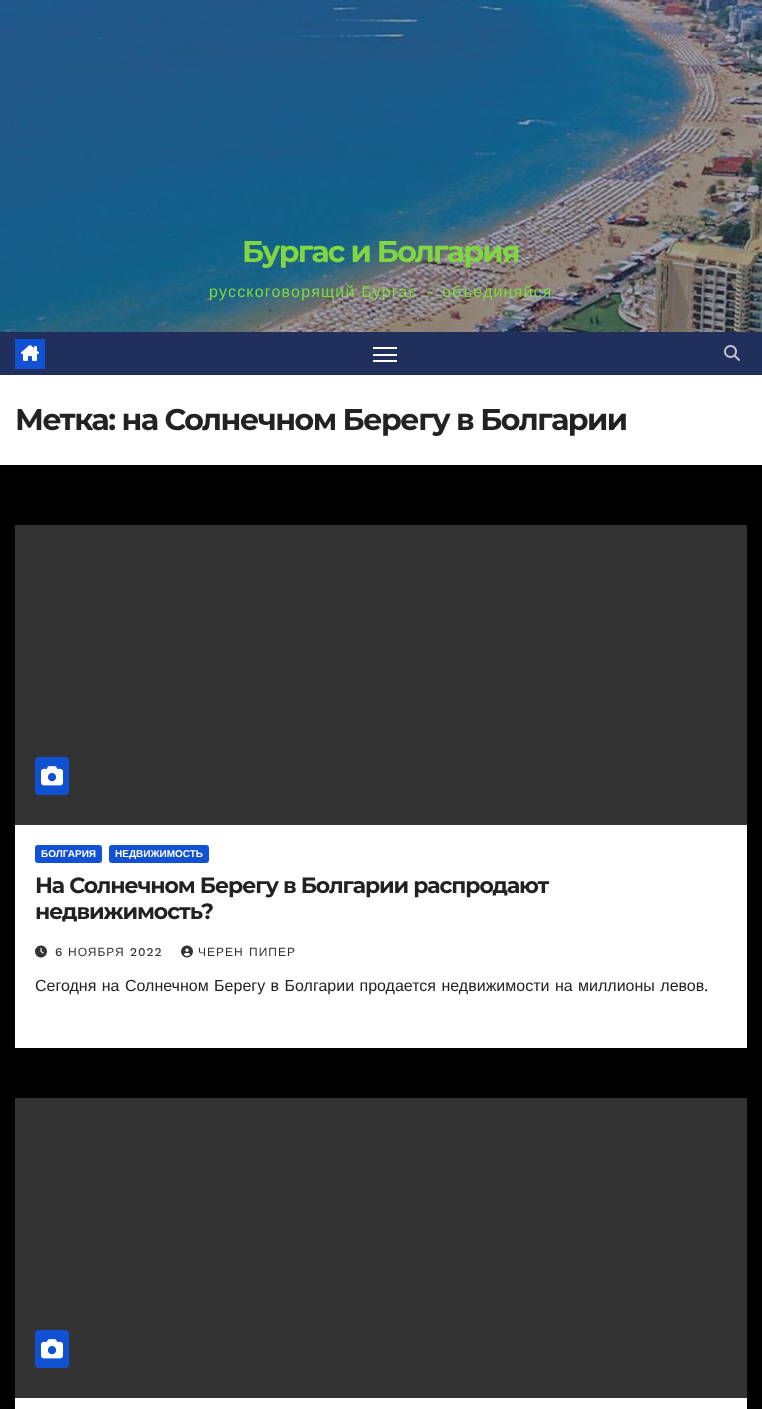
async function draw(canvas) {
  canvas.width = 762;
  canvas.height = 1409;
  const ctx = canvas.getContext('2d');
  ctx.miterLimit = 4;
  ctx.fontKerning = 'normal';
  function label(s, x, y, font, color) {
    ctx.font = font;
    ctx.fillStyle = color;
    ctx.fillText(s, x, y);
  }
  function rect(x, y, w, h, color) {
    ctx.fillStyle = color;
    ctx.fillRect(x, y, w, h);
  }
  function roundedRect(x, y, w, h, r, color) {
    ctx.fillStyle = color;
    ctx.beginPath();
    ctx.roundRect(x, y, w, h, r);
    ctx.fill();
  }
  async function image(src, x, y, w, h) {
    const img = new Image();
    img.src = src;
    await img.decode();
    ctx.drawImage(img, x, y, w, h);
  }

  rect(0, 0, 762, 1409, '#000');
  await image('assets/img1.png', 0, 0, 762, 332);
  ctx.letterSpacing = '-1.75px';
  label('Бургас и Болгария', 242, 262, 'bold 30px Montserrat', '#81d742');
  ctx.letterSpacing = '1.2px';
  label('русскоговорящий Бургас', 209, 297, '16px Liberation Sans', '#81d742');
  label('-', 426, 297, '16px Work Sans', '#81d742');
  label('объединяйся', 442, 297, '16px Liberation Sans', '#81d742');
  rect(0, 332, 762, 43, '#202f5b');
  rect(15, 339, 30, 30, '#1151d3');
  await image('assets/img2.png', 21, 345, 18, 16);
  rect(373, 347, 24, 2, '#fff');
  rect(373, 354, 24, 2, '#fff');
  rect(373, 360, 24, 2, '#fff');
  await image('assets/img3.png', 724, 345, 16, 16);
  rect(0, 375, 762, 90, '#fff');
  ctx.letterSpacing = '-1.5px';
  label('Метка: на Солнечном Берегу в Болгарии', 15, 430, 'bold 30px Montserrat', '#222');
  rect(15, 825, 732, 223, '#fff');
  rect(15, 525, 732, 300, '#333');
  roundedRect(35, 757, 34, 38, 4, '#1151d3');
  await image('assets/img4.png', 41, 766, 22, 20);
  roundedRect(35, 845, 67, 18, 3, '#1151d3');
  ctx.letterSpacing = '0px';
  label('БОЛГАРИЯ', 41, 857, 'bold 10px Liberation Sans', '#fff');
  roundedRect(109, 845, 100, 18, 3, '#1151d3');
  label('НЕДВИЖИМОСТЬ', 115, 857, 'bold 10px Liberation Sans', '#fff');
  ctx.letterSpacing = '-1.1px';
  label('На Солнечном Берегу в Болгарии распродают', 35, 893, 'bold 22px Montserrat', '#222');
  label('недвижимость?', 35, 919, 'bold 22px Montserrat', '#222');
  await image('assets/img5.png', 35, 945, 12, 13);
  ctx.letterSpacing = '1px';
  label('6', 55, 956, '500 12px Work Sans', '#333');
  label('НОЯБРЯ', 68, 956, '12px Liberation Sans', '#333');
  label('2022', 130, 956, '500 12px Work Sans', '#333');
  await image('assets/img6.png', 181, 945, 12, 13);
  ctx.wordSpacing = '1px';
  label('ЧЕРЕН ПИПЕР', 198, 956, '12px Liberation Sans', '#333');
  ctx.letterSpacing = '0px';
  label('Сегодня на Солнечном Берегу в Болгарии продается недвижимости на миллионы левов', 35, 991, '16px Liberation Sans', '#222');
  ctx.wordSpacing = '0px';
  label('.', 704, 991, '16px Work Sans', '#222');
  rect(15, 1398, 732, 11, '#fff');
  rect(15, 1098, 732, 300, '#333');
  roundedRect(35, 1330, 34, 38, 4, '#1151d3');
  await image('assets/img4.png', 41, 1339, 22, 20);
}

draw(document.querySelector('canvas'));
